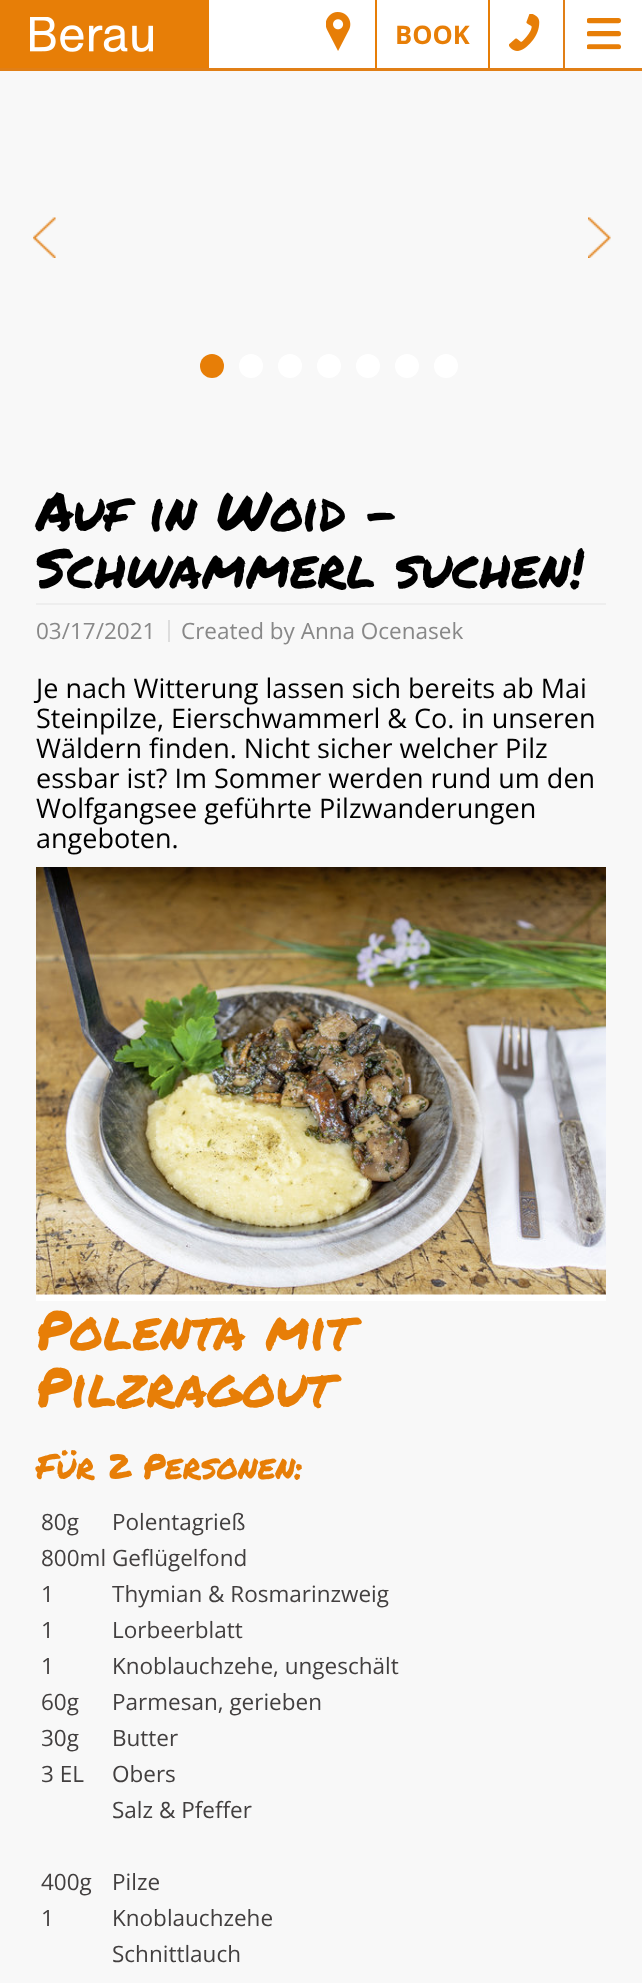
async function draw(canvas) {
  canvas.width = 642;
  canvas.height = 1983;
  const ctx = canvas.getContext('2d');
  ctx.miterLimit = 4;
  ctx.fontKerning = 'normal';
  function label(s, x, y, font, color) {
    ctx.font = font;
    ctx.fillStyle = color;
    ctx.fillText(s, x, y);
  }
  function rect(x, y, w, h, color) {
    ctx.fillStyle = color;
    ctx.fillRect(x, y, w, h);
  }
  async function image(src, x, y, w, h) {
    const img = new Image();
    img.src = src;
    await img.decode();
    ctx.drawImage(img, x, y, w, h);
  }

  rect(0, 0, 642, 1983, '#f8f8f8');
  rect(209, 0, 433, 68, '#fff');
  rect(0, 68, 642, 3, '#e17f16');
  rect(0, 0, 209, 68, '#e77e07');
  await image('assets/img1.png', 30, 17, 123, 35);
  rect(375, 0, 2, 68, '#e77e07');
  await image('assets/img2.png', 326, 12, 25, 39);
  rect(488, 0, 2, 68, '#e77e07');
  label('BOOK', 395, 44, 'bold 25.5px Open Sans', '#e77e07');
  rect(563, 0, 2, 68, '#e17f16');
  await image('assets/img3.png', 509, 14, 31, 37);
  await image('assets/img4.png', 587, 18, 34, 32);
  await image('assets/img5.png', 33, 217, 23, 41);
  await image('assets/img6.png', 588, 217, 23, 41);
  ctx.fillStyle = '#e77e07';
  ctx.beginPath();
  ctx.arc(212, 366, 12, 0, 2 * Math.PI);
  ctx.fill();
  ctx.fillStyle = '#fff';
  ctx.beginPath();
  ctx.arc(251, 366, 12, 0, 2 * Math.PI);
  ctx.fill();
  ctx.beginPath();
  ctx.arc(290, 366, 12, 0, 2 * Math.PI);
  ctx.fill();
  ctx.beginPath();
  ctx.arc(329, 366, 12, 0, 2 * Math.PI);
  ctx.fill();
  ctx.beginPath();
  ctx.arc(368, 366, 12, 0, 2 * Math.PI);
  ctx.fill();
  ctx.beginPath();
  ctx.arc(407, 366, 12, 0, 2 * Math.PI);
  ctx.fill();
  ctx.beginPath();
  ctx.arc(446, 366, 12, 0, 2 * Math.PI);
  ctx.fill();
  label('Auf in Woid -', 36, 531, '54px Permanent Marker', '#000');
  label('Schwammerl suchen!', 36, 588, '54px Permanent Marker', '#000');
  rect(36, 603, 570, 2, '#eee');
  rect(168, 620, 2, 22, '#ddd');
  label('03/17/2021', 36, 639, '22.5px Open Sans', '#888');
  label('Created by Anna Ocenasek', 181, 639, '22.5px Open Sans', '#888');
  label('Je nach Witterung lassen sich bereits ab Mai', 36, 698, '27px Open Sans', '#000');
  label('Steinpilze, Eierschwammerl & Co. in unseren', 36, 728, '27px Open Sans', '#000');
  label('Wäldern finden. Nicht sicher welcher Pilz', 36, 758, '27px Open Sans', '#000');
  label('essbar ist? Im Sommer werden rund um den', 36, 788, '27px Open Sans', '#000');
  label('Wolfgangsee geführte Pilzwanderungen', 36, 818, '27px Open Sans', '#000');
  label('angeboten.', 36, 848, '27px Open Sans', '#000');
  rect(36, 1294, 570, 7, '#fff');
  await image('assets/img7.png', 36, 867, 570, 428);
  label('Polenta mit', 36, 1350, '54px Permanent Marker', '#e77e07');
  label('Pilzragout', 36, 1407, '54px Permanent Marker', '#e77e07');
  label('Für 2 Personen:', 36, 1479, '34.5px Permanent Marker', '#e77e07');
  label('80g', 41, 1530, '22.5px Open Sans', '#423f3f');
  label('Polentagrieß', 112, 1530, '22.5px Open Sans', '#423f3f');
  label('800ml Geflügelfond', 41, 1566, '22.5px Open Sans', '#423f3f');
  label('1', 41, 1602, '22.5px Open Sans', '#423f3f');
  label('Thymian & Rosmarinzweig', 112, 1602, '22.5px Open Sans', '#423f3f');
  label('1', 41, 1638, '22.5px Open Sans', '#423f3f');
  label('Lorbeerblatt', 112, 1638, '22.5px Open Sans', '#423f3f');
  label('1', 41, 1674, '22.5px Open Sans', '#423f3f');
  label('Knoblauchzehe, ungeschält', 112, 1674, '22.5px Open Sans', '#423f3f');
  label('60g', 41, 1710, '22.5px Open Sans', '#423f3f');
  label('Parmesan, gerieben', 112, 1710, '22.5px Open Sans', '#423f3f');
  label('30g', 41, 1746, '22.5px Open Sans', '#423f3f');
  label('Butter', 112, 1746, '22.5px Open Sans', '#423f3f');
  label('3 EL', 41, 1782, '22.5px Open Sans', '#423f3f');
  label('Obers', 112, 1782, '22.5px Open Sans', '#423f3f');
  label('Salz & Pfeffer', 112, 1818, '22.5px Open Sans', '#423f3f');
  label('400g', 41, 1890, '22.5px Open Sans', '#423f3f');
  label('Pilze', 112, 1890, '22.5px Open Sans', '#423f3f');
  label('1', 41, 1926, '22.5px Open Sans', '#423f3f');
  label('Knoblauchzehe', 112, 1926, '22.5px Open Sans', '#423f3f');
  label('Schnittlauch', 112, 1962, '22.5px Open Sans', '#423f3f');
}

draw(document.querySelector('canvas'));
